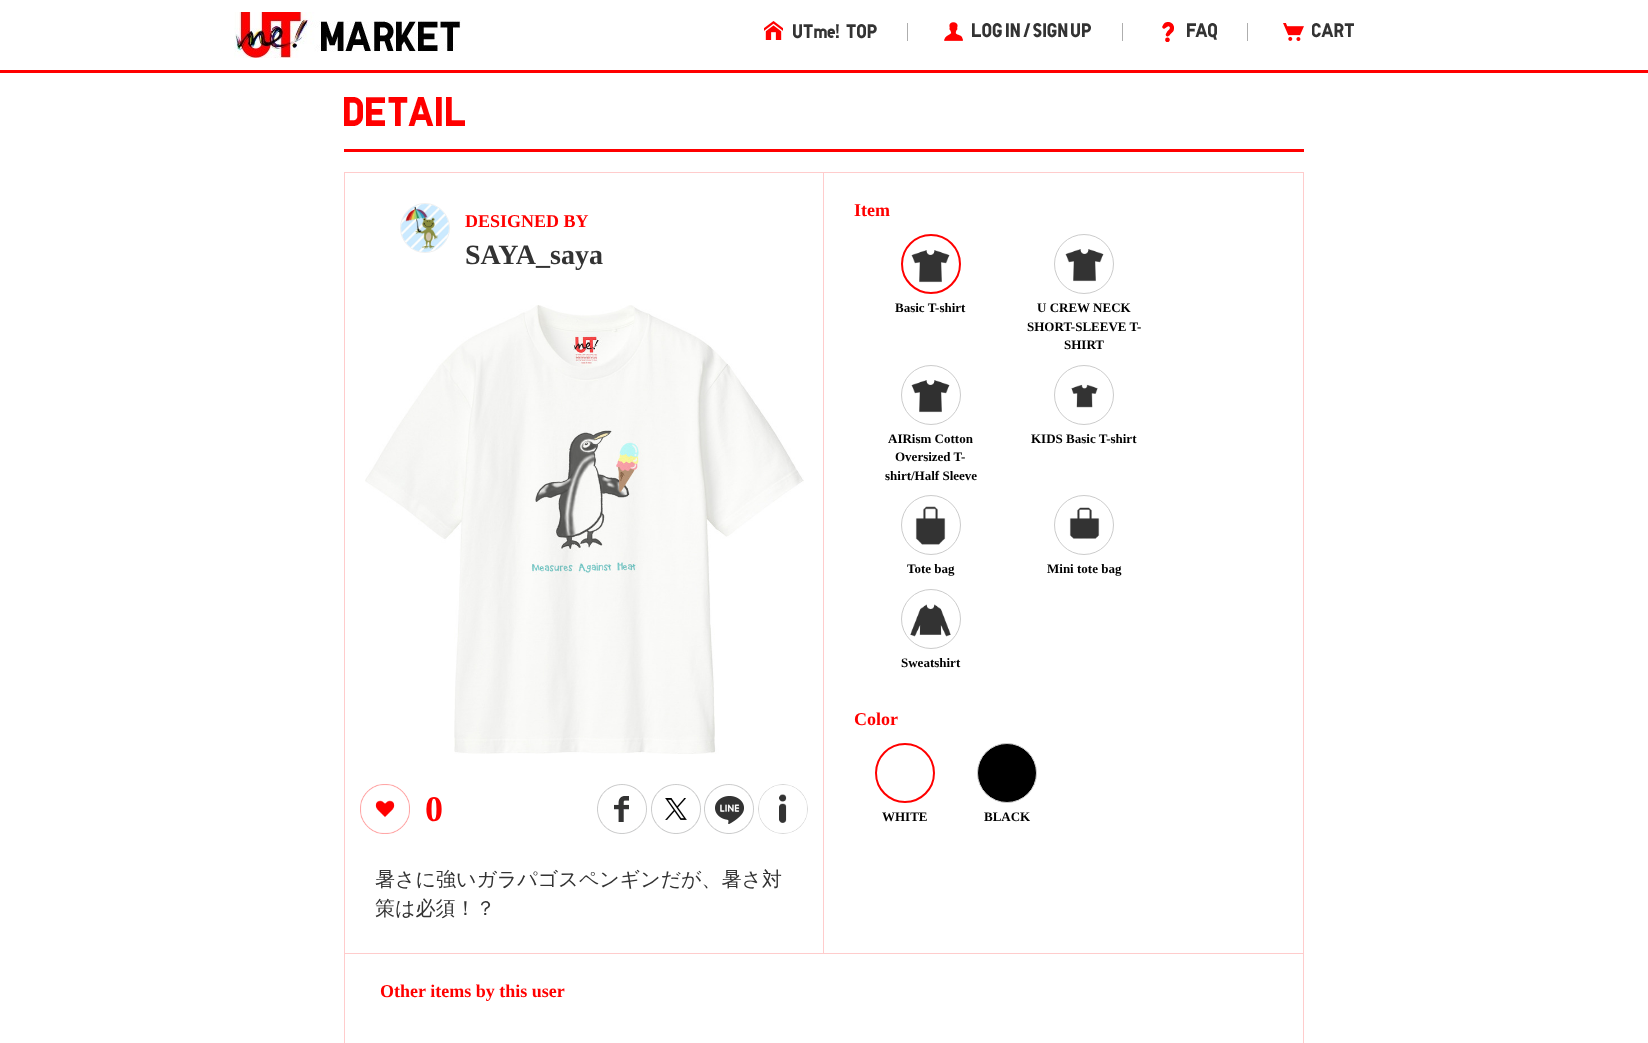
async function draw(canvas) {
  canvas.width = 1648;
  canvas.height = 1043;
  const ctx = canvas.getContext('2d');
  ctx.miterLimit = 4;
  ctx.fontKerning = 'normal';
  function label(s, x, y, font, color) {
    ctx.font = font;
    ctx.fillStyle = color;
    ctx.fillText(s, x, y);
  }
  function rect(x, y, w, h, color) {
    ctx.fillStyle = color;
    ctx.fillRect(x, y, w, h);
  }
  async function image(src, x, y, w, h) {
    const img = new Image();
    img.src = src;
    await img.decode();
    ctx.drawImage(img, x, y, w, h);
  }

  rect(0, 0, 1648, 1043, '#fff');
  await image('assets/img1.png', 234, 12, 227, 46);
  await image('assets/img2.png', 764, 21, 19, 19);
  await image('assets/img3.png', 793, 24, 84, 15);
  rect(907, 23, 1, 18, '#aeaeae');
  await image('assets/img4.png', 944, 22, 19, 19);
  await image('assets/img5.png', 972, 23, 119, 15);
  rect(1122, 23, 1, 18, '#aeaeae');
  await image('assets/img6.png', 1162, 22, 12, 20);
  await image('assets/img7.png', 1187, 23, 30, 17);
  rect(1247, 23, 1, 18, '#aeaeae');
  await image('assets/img8.png', 1283, 23, 21, 18);
  await image('assets/img9.png', 1312, 23, 42, 15);
  rect(0, 70, 1648, 3, '#f00');
  await image('assets/img10.png', 344, 97, 121, 29);
  rect(344, 149, 960, 3, '#f00');
  ctx.strokeStyle = '#fcc';
  ctx.strokeRect(344.5, 172.5, 959, 781);
  rect(823, 173, 1, 780, '#fcc');
  ctx.beginPath();
  ctx.arc(425, 228, 24.5, 0, 2 * Math.PI);
  ctx.strokeStyle = '#efefef';
  ctx.stroke();
  await image('assets/img11.png', 401, 204, 48, 48);
  label('DESIGNED BY', 465, 227, 'bold 18px Liberation Serif', '#f00');
  label('SAYA_saya', 465, 264, 'bold 28px Liberation Serif', '#333');
  await image('assets/img12.png', 365, 305, 439, 449);
  await image('assets/img13.png', 360, 784, 50, 50);
  label('0', 425, 821, 'bold 36px Liberation Serif', '#f00');
  await image('assets/img14.png', 597, 784, 50, 50);
  await image('assets/img15.png', 651, 784, 50, 50);
  await image('assets/img16.png', 704, 784, 50, 50);
  await image('assets/img17.png', 758, 784, 50, 50);
  label('暑さに強いガラパゴスペンギンだが、暑さ対', 375, 886, '500 20px WenQuanYi Zen Hei', '#333');
  label('策は必須！？', 375, 915, '500 20px WenQuanYi Zen Hei', '#333');
  label('Item', 854, 216, 'bold 18px Liberation Serif', '#f00');
  ctx.beginPath();
  ctx.arc(931, 264, 29, 0, 2 * Math.PI);
  ctx.strokeStyle = '#f00';
  ctx.lineWidth = 2;
  ctx.stroke();
  await image('assets/img18.png', 911, 250, 39, 33);
  label('Basic T-shirt', 895, 312, 'bold 13px Liberation Serif', '#000');
  ctx.beginPath();
  ctx.arc(1084, 264, 29.5, 0, 2 * Math.PI);
  ctx.strokeStyle = '#ccc';
  ctx.lineWidth = 1;
  ctx.stroke();
  await image('assets/img18.png', 1065, 249, 39, 33);
  label('U CREW NECK', 1037, 312, 'bold 13px Liberation Serif', '#000');
  label('SHORT-SLEEVE T-', 1027, 331, 'bold 13px Liberation Serif', '#000');
  label('SHIRT', 1064, 349, 'bold 13px Liberation Serif', '#000');
  ctx.beginPath();
  ctx.arc(931, 395, 29.5, 0, 2 * Math.PI);
  ctx.stroke();
  await image('assets/img19.png', 911, 380, 39, 33);
  label('AIRism Cotton', 888, 443, 'bold 13px Liberation Serif', '#000');
  label('Oversized T-', 895, 461, 'bold 13px Liberation Serif', '#000');
  label('shirt/Half Sleeve', 885, 480, 'bold 13px Liberation Serif', '#000');
  ctx.beginPath();
  ctx.arc(1084, 395, 29.5, 0, 2 * Math.PI);
  ctx.stroke();
  await image('assets/img20.png', 1071, 384, 27, 24);
  label('KIDS Basic T-shirt', 1031, 443, 'bold 13px Liberation Serif', '#000');
  ctx.beginPath();
  ctx.arc(931, 525, 29.5, 0, 2 * Math.PI);
  ctx.stroke();
  await image('assets/img21.png', 915, 506, 31, 39);
  label('Tote bag', 907, 573, 'bold 13px Liberation Serif', '#000');
  ctx.beginPath();
  ctx.arc(1084, 525, 29.5, 0, 2 * Math.PI);
  ctx.stroke();
  await image('assets/img22.png', 1069, 507, 31, 32);
  label('Mini tote bag', 1047, 573, 'bold 13px Liberation Serif', '#000');
  ctx.beginPath();
  ctx.arc(931, 619, 29.5, 0, 2 * Math.PI);
  ctx.stroke();
  await image('assets/img23.png', 910, 604, 41, 33);
  label('Sweatshirt', 901, 667, 'bold 13px Liberation Serif', '#000');
  label('Color', 854, 725, 'bold 18px Liberation Serif', '#f00');
  ctx.beginPath();
  ctx.arc(905, 773, 29, 0, 2 * Math.PI);
  ctx.strokeStyle = '#f00';
  ctx.lineWidth = 2;
  ctx.stroke();
  label('WHITE', 882, 821, 'bold 13px Liberation Serif', '#000');
  ctx.beginPath();
  ctx.arc(1007, 773, 29.5, 0, 2 * Math.PI);
  ctx.fill();
  ctx.strokeStyle = '#ccc';
  ctx.lineWidth = 1;
  ctx.stroke();
  label('BLACK', 984, 821, 'bold 13px Liberation Serif', '#000');
  rect(1303, 954, 1, 89, '#fcc');
  rect(344, 954, 1, 89, '#fcc');
  label('Other items by this user', 380, 997, 'bold 18px Liberation Serif', '#f00');
}

draw(document.querySelector('canvas'));
